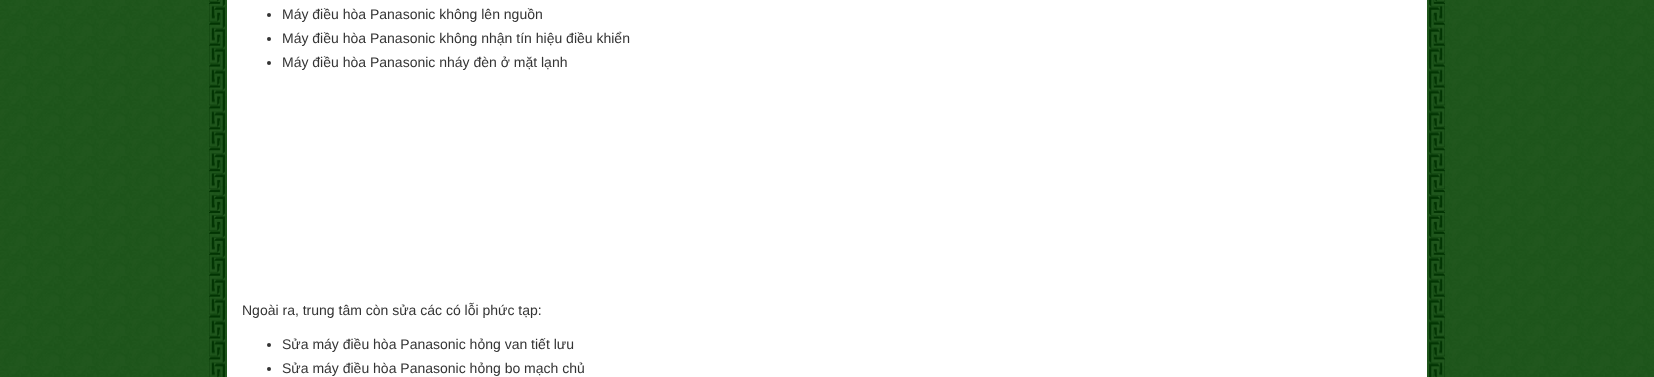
async function draw(canvas) {
  canvas.width = 1654;
  canvas.height = 377;
  const ctx = canvas.getContext('2d');
  ctx.miterLimit = 4;
  ctx.fontKerning = 'normal';
  function label(s, x, y, font, color) {
    ctx.font = font;
    ctx.fillStyle = color;
    ctx.fillText(s, x, y);
  }
  function rect(x, y, w, h, color) {
    ctx.fillStyle = color;
    ctx.fillRect(x, y, w, h);
  }
  async function image(src, x, y, w, h) {
    const img = new Image();
    img.src = src;
    await img.decode();
    ctx.drawImage(img, x, y, w, h);
  }

  rect(0, 0, 1654, 377, '#fff');
  await image('assets/img1.png', 0, 0, 1654, 377);
  await image('assets/img2.png', 209, 0, 1236, 377);
  rect(227, 0, 1200, 377, '#fff');
  ctx.fillStyle = '#333';
  ctx.beginPath();
  ctx.arc(269, 15, 2, 0, 2 * Math.PI);
  ctx.fill();
  label('Máy điều hòa Panasonic không lên nguồn', 282, 19, '14px Liberation Sans', '#333');
  ctx.beginPath();
  ctx.arc(269, 39, 2, 0, 2 * Math.PI);
  ctx.fill();
  label('Máy điều hòa Panasonic không nhận tín hiệu điều khiển', 282, 43, '14px Liberation Sans', '#333');
  ctx.beginPath();
  ctx.arc(269, 63, 2, 0, 2 * Math.PI);
  ctx.fill();
  label('Máy điều hòa Panasonic nháy đèn ở mặt lạnh', 282, 67, '14px Liberation Sans', '#333');
  label('Ngoài ra, trung tâm còn sửa các có lỗi phức tạp:', 242, 315, '14px Liberation Sans', '#333');
  ctx.beginPath();
  ctx.arc(269, 345, 2, 0, 2 * Math.PI);
  ctx.fill();
  label('Sửa máy điều hòa Panasonic hỏng van tiết lưu', 282, 349, '14px Liberation Sans', '#333');
  ctx.beginPath();
  ctx.arc(269, 369, 2, 0, 2 * Math.PI);
  ctx.fill();
  label('Sửa máy điều hòa Panasonic hỏng bo mạch chủ', 282, 373, '14px Liberation Sans', '#333');
}

draw(document.querySelector('canvas'));
